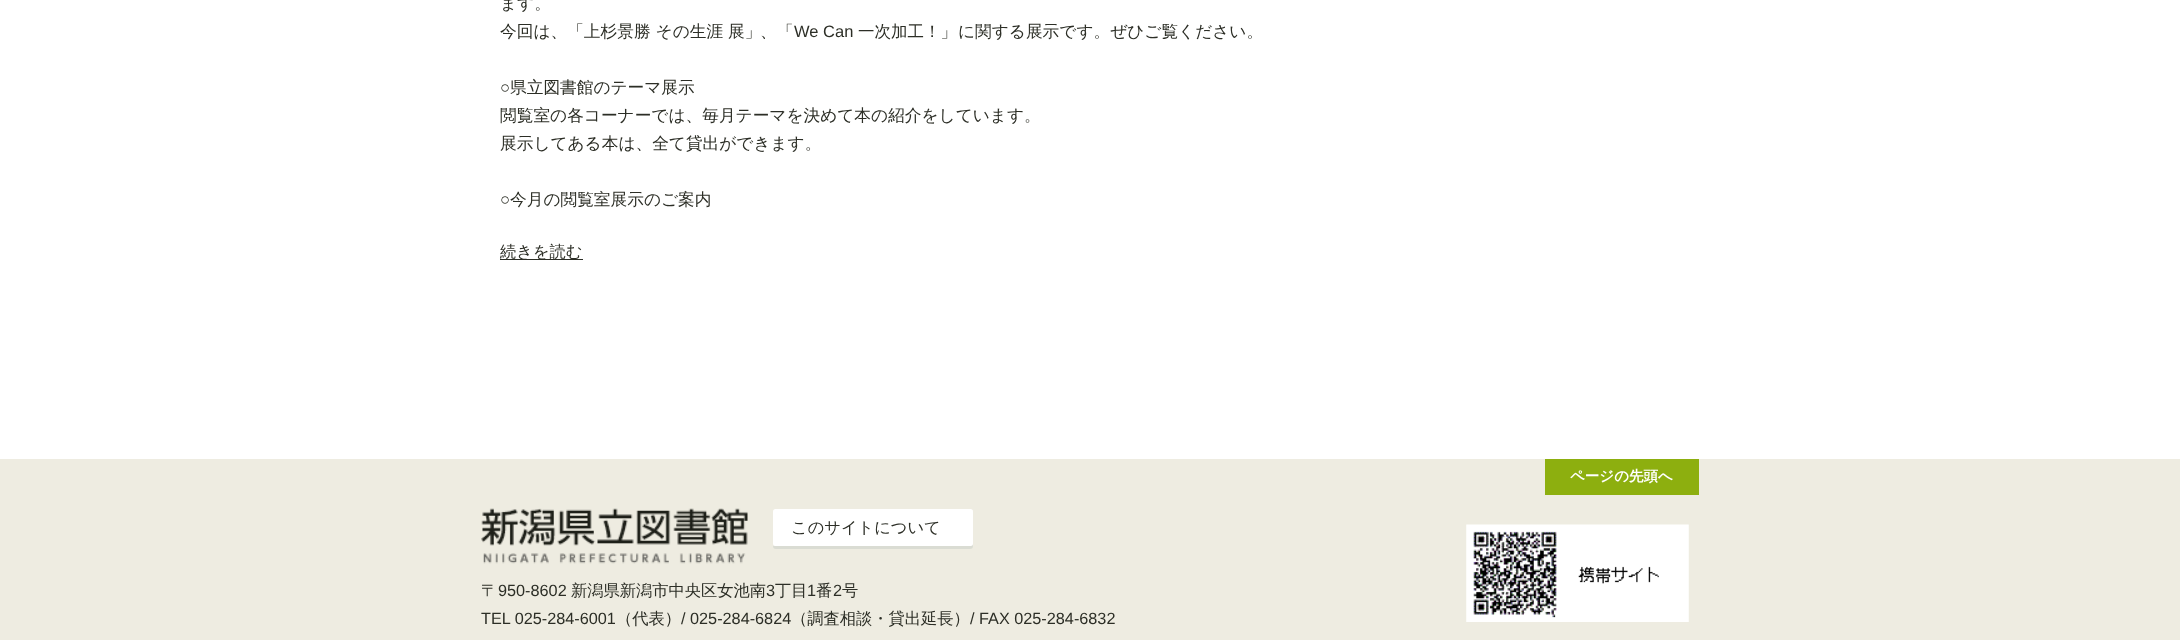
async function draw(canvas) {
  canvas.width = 2180;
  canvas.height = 640;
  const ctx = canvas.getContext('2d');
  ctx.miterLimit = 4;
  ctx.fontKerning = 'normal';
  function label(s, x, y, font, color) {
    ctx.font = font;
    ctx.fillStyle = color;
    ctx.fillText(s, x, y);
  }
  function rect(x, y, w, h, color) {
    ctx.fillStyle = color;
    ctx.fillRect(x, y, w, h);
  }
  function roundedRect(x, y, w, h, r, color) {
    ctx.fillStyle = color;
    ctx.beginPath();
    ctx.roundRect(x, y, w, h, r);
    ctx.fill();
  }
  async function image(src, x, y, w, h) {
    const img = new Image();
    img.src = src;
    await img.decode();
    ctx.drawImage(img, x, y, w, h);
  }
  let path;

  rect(0, 0, 2180, 640, '#fff');
  label('ます。', 500, 9, '500 16.7px WenQuanYi Zen Hei', '#2c2e26');
  label('今回は、「上杉景勝 その生涯 展」', 500, 37, '500 16.7px WenQuanYi Zen Hei', '#2c2e26');
  label('、', 760, 37, '500 16.7px WenQuanYi Zen Hei', '#2c2e26');
  label('「', 777, 37, '500 16.5px WenQuanYi Zen Hei', '#2c2e26');
  label('We Can', 794, 37, '16.5px Liberation Sans', '#2c2e26');
  label('一次加工！」', 858, 37, '500 16.5px WenQuanYi Zen Hei', '#2c2e26');
  label('に関する展示です。ぜひご覧ください。', 958, 37, '500 16.7px WenQuanYi Zen Hei', '#2c2e26');
  label('○', 500, 93, '16.7px Liberation Sans', '#2c2e26');
  label('県立図書館のテーマ展示', 510, 93, '500 16.7px WenQuanYi Zen Hei', '#2c2e26');
  label('閲覧室の各コーナーでは、毎月テーマを決めて本の紹介をしています。', 500, 121, '500 16.7px WenQuanYi Zen Hei', '#2c2e26');
  label('展示してある本は、全て貸出ができます。', 500, 149, '500 16.7px WenQuanYi Zen Hei', '#2c2e26');
  label('○', 500, 205, '16.7px Liberation Sans', '#2c2e26');
  label('今月の閲覧室展示のご案内', 510, 205, '500 16.7px WenQuanYi Zen Hei', '#2c2e26');
  rect(500, 259, 83, 1, '#2c2e26');
  label('続きを読む', 500, 257, '500 16.25px WenQuanYi Zen Hei', '#2c2e26');
  rect(0, 459, 2180, 181, '#eeece1');
  rect(1545, 459, 154, 36, '#8daf0f');
  label('ページの先頭へ', 1570, 481, 'bold 14.5px WenQuanYi Zen Hei', '#fff');
  await image('assets/img1.png', 481, 508, 267, 56);
  ctx.fillStyle = '#dadcd3';
  path = new Path2D('M773 545V546C773 548 774 549 776 549H970C972 549 973 548 973 546V514L972 512V544C972 545 971 546 970 546H775C774 546 773 546 773 545Z');
  ctx.fill(path);
  roundedRect(773, 509, 200, 37, 2.5, '#fff');
  label('このサイトについて', 791, 533, '500 16.25px WenQuanYi Zen Hei', '#2c2e26');
  await image('assets/img2.png', 1466, 524, 223, 98);
  label('〒', 481, 596, '500 16.25px WenQuanYi Zen Hei', '#2c2e26');
  label('950-8602', 498, 596, '16.25px Liberation Sans', '#2c2e26');
  label('新潟県新潟市中央区女池南', 571, 596, '500 16.25px WenQuanYi Zen Hei', '#2c2e26');
  label('3', 766, 596, '16.25px Liberation Sans', '#2c2e26');
  label('丁目', 775, 596, '500 16.25px WenQuanYi Zen Hei', '#2c2e26');
  label('1', 807, 596, '16.25px Liberation Sans', '#2c2e26');
  label('番', 816, 596, '500 16.25px WenQuanYi Zen Hei', '#2c2e26');
  label('2', 833, 596, '16.25px Liberation Sans', '#2c2e26');
  label('号', 842, 596, '500 16.25px WenQuanYi Zen Hei', '#2c2e26');
  label('TEL 025-284-6001', 481, 624, '16.25px Liberation Sans', '#2c2e26');
  label('（代表）', 616, 624, '500 16.25px WenQuanYi Zen Hei', '#2c2e26');
  label('/ 025-284-6824', 681, 624, '16.25px Liberation Sans', '#2c2e26');
  label('（調査相談・貸出延長）', 791, 624, '500 16.25px WenQuanYi Zen Hei', '#2c2e26');
  label('/ FAX 025-284-6832', 970, 624, '16.25px Liberation Sans', '#2c2e26');
}

draw(document.querySelector('canvas'));
